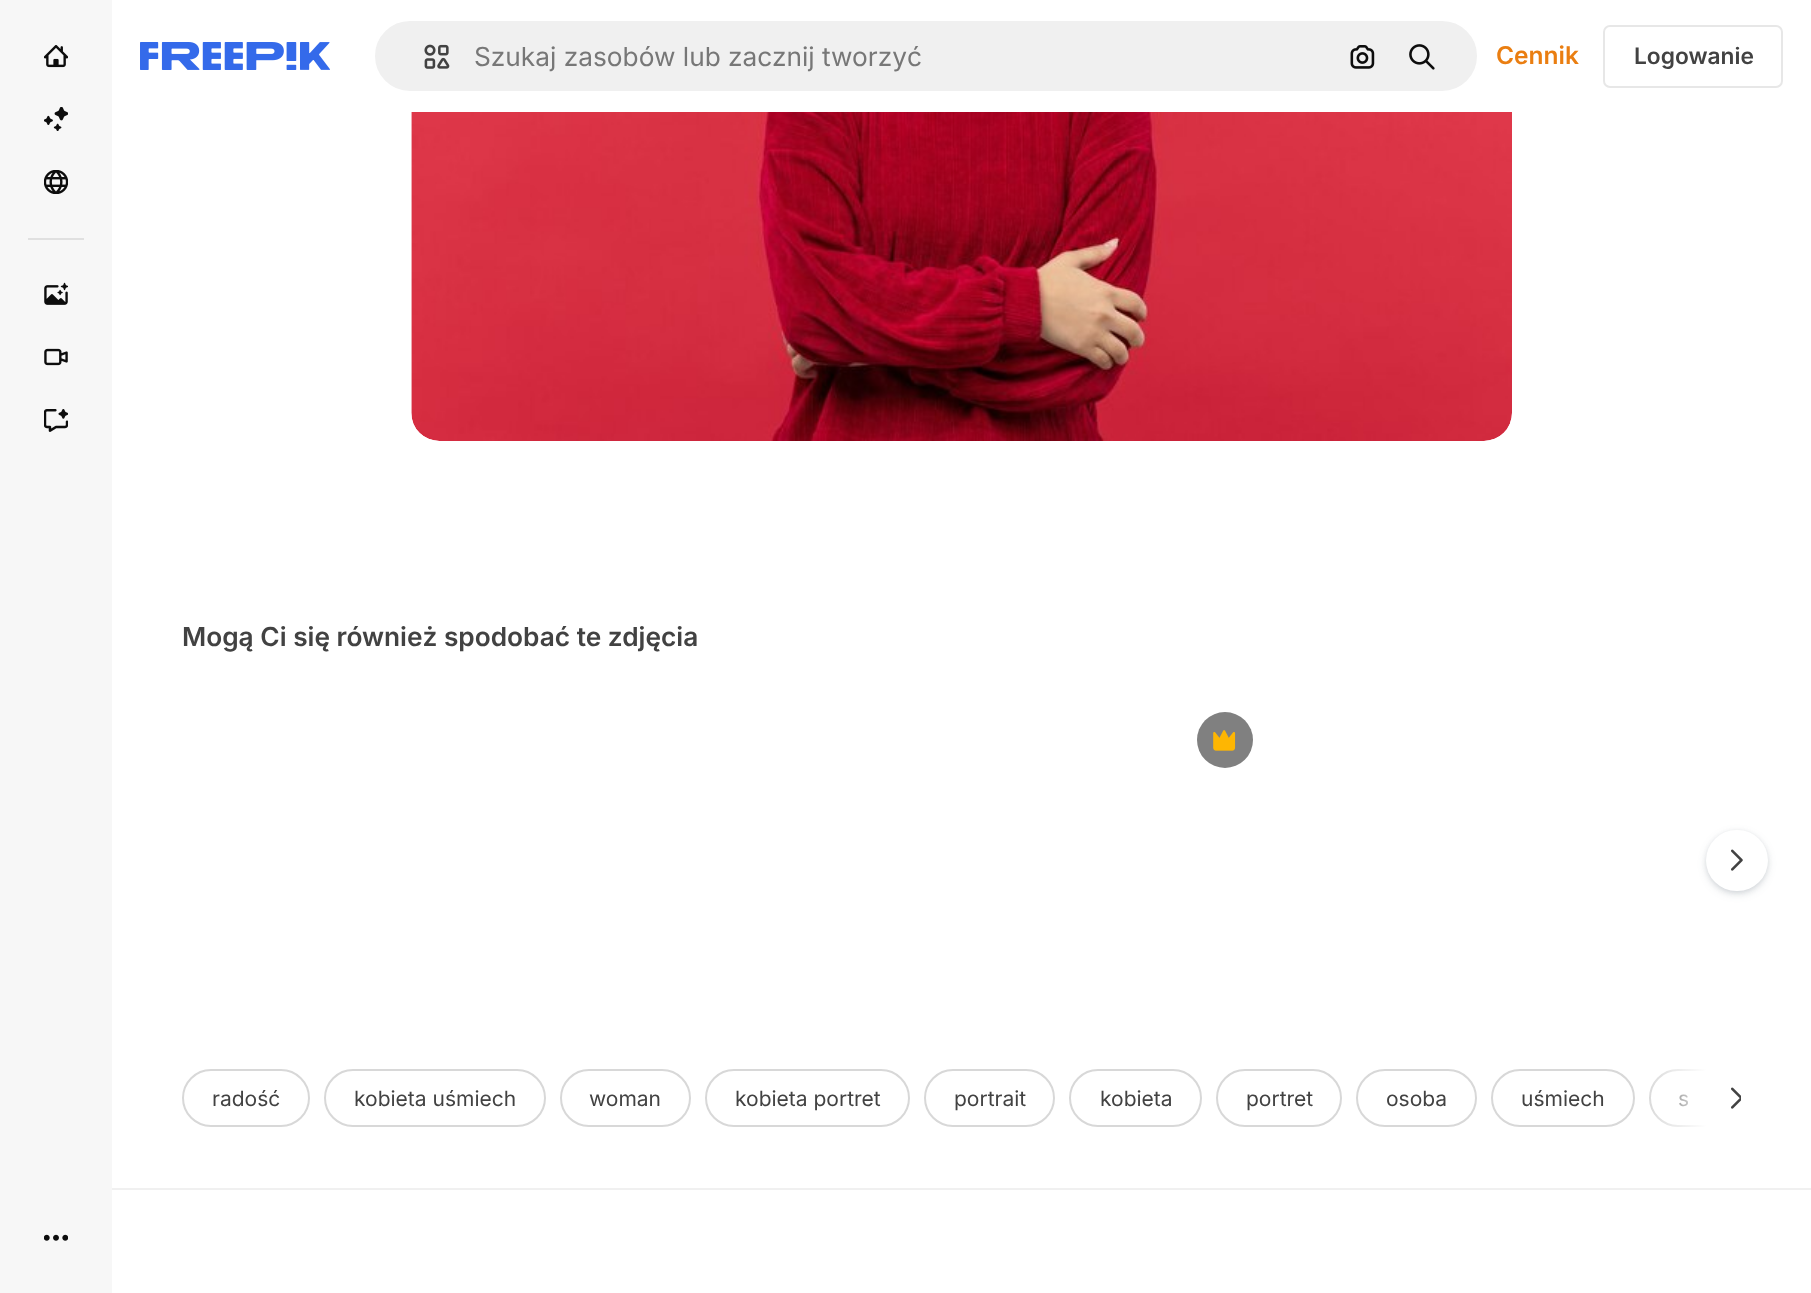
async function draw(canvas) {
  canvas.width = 1811;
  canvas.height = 1293;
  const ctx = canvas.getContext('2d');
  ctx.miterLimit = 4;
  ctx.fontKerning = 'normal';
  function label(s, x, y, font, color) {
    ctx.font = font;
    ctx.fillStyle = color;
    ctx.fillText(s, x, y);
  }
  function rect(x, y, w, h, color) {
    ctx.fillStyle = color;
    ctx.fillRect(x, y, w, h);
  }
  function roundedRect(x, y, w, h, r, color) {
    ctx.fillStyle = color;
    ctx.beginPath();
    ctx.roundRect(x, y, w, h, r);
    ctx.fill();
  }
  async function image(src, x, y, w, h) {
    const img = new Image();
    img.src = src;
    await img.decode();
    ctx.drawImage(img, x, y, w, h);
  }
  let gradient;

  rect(0, 0, 1811, 1293, '#fff');
  rect(0, 0, 112, 1293, '#f7f7f7');
  await image('assets/img1.png', 44, 45, 24, 23);
  await image('assets/img2.png', 44, 107, 24, 24);
  await image('assets/img3.png', 44, 170, 24, 24);
  rect(28, 238, 56, 2, '#e0e0e0');
  await image('assets/img4.png', 44, 282, 24, 23);
  await image('assets/img5.png', 44, 348, 24, 18);
  await image('assets/img6.png', 44, 409, 24, 23);
  await image('assets/img7.png', 44, 1234, 24, 7);
  await image('assets/img8.png', 140, 42, 190, 28);
  ctx.fillStyle = '#f0f0f0';
  ctx.beginPath();
  ctx.roundRect(374, 20, 1104, 72, 36);
  ctx.fill();
  ctx.strokeStyle = '#fff';
  ctx.lineWidth = 2;
  ctx.stroke();
  await image('assets/img9.png', 424, 44, 26, 25);
  label('Szukaj zasobów lub zacznij tworzyć', 474, 66, '26.25px Inter', '#777');
  await image('assets/img10.png', 1350, 45, 25, 24);
  await image('assets/img11.png', 1409, 44, 26, 26);
  label('Cennik', 1496, 64, '600 24.5px Inter', '#ea7e11');
  ctx.beginPath();
  ctx.roundRect(1604, 26, 178, 61, 6);
  ctx.strokeStyle = '#e7e7e7';
  ctx.stroke();
  label('Logowanie', 1634, 64, '600 22.75px Inter', '#424242');
  await image('assets/img12.png', 411, 112, 1101, 329);
  label('Mogą Ci się również spodobać te zdjęcia', 182, 646, '600 26.25px Inter', '#424242');
  ctx.fillStyle = '#808080';
  ctx.beginPath();
  ctx.arc(1225, 740, 28, 0, 2 * Math.PI);
  ctx.fill();
  await image('assets/img13.png', 1213, 730, 23, 21);
  ctx.fillStyle = '#37495726';
  ctx.filter = 'blur(4.5px)';
  ctx.beginPath();
  ctx.roundRect(1706, 833, 62, 61, 30.5);
  ctx.fill();
  ctx.filter = 'none';
  ctx.fillStyle = '#3749571a';
  ctx.filter = 'blur(2px)';
  ctx.beginPath();
  ctx.roundRect(1706, 831, 62, 62, 31);
  ctx.fill();
  ctx.filter = 'none';
  roundedRect(1706, 830, 62, 61, 30.5, '#fff');
  await image('assets/img14.png', 1731, 849, 12, 22);
  ctx.beginPath();
  ctx.roundRect(183, 1070, 126, 56, 28);
  ctx.strokeStyle = '#d8d8d8';
  ctx.stroke();
  label('radość', 212, 1106, '21px Inter', '#424242');
  ctx.beginPath();
  ctx.roundRect(325, 1070, 220, 56, 28);
  ctx.stroke();
  label('kobieta uśmiech', 354, 1106, '21px Inter', '#424242');
  ctx.beginPath();
  ctx.roundRect(561, 1070, 129, 56, 28);
  ctx.stroke();
  label('woman', 589, 1106, '21px Inter', '#424242');
  ctx.beginPath();
  ctx.roundRect(706, 1070, 203, 56, 28);
  ctx.stroke();
  label('kobieta portret', 735, 1106, '21px Inter', '#424242');
  ctx.beginPath();
  ctx.roundRect(925, 1070, 129, 56, 28);
  ctx.stroke();
  label('portrait', 954, 1106, '21px Inter', '#424242');
  ctx.beginPath();
  ctx.roundRect(1070, 1070, 131, 56, 28);
  ctx.stroke();
  label('kobieta', 1100, 1106, '21px Inter', '#424242');
  ctx.beginPath();
  ctx.roundRect(1217, 1070, 124, 56, 28);
  ctx.stroke();
  label('portret', 1246, 1106, '21px Inter', '#424242');
  ctx.beginPath();
  ctx.roundRect(1357, 1070, 119, 56, 28);
  ctx.stroke();
  label('osoba', 1386, 1106, '21px Inter', '#424242');
  ctx.beginPath();
  ctx.roundRect(1492, 1070, 142, 56, 28);
  ctx.stroke();
  label('uśmiech', 1521, 1106, '21px Inter', '#424242');
  ctx.save();
  ctx.beginPath();
  ctx.rect(182, 1069, 1559, 58);
  ctx.clip();
  ctx.beginPath();
  ctx.roundRect(1650, 1070, 155, 56, 28);
  ctx.stroke();
  ctx.restore();
  label('s', 1678, 1106, '21px Inter', '#424242');
  rect(1706, 1069, 35, 58, '#fff');
  gradient = ctx.createLinearGradient(1706, 1098, 1645, 1098);
  gradient.addColorStop(0, '#fff');
  gradient.addColorStop(1, '#ffffff00');
  ctx.fillStyle = gradient;
  ctx.fillRect(1649, 1069, 57, 58);
  await image('assets/img15.png', 1731, 1087, 10, 22);
  rect(112, 1188, 1699, 2, '#f0f0f0');
}

draw(document.querySelector('canvas'));
